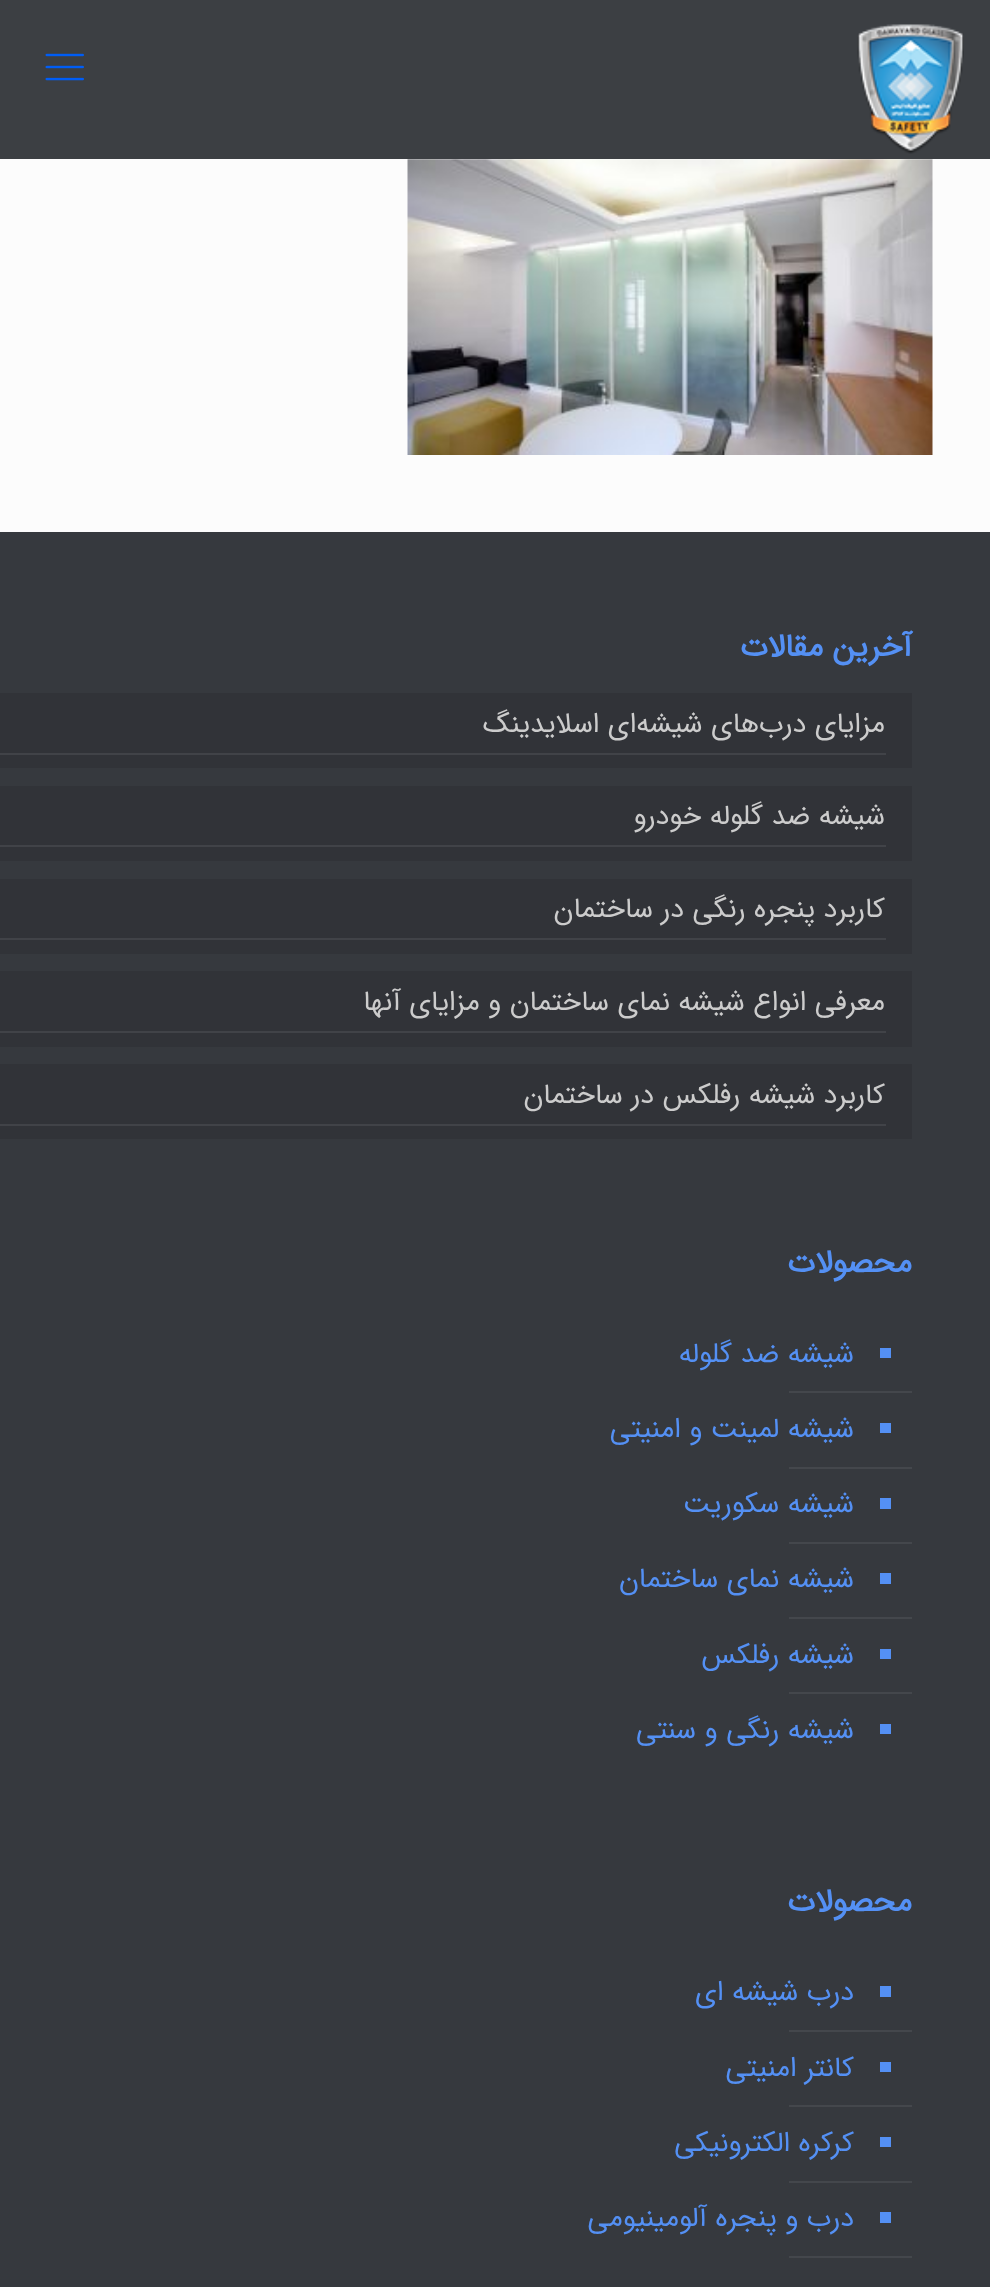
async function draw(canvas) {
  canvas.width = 990;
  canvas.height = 2287;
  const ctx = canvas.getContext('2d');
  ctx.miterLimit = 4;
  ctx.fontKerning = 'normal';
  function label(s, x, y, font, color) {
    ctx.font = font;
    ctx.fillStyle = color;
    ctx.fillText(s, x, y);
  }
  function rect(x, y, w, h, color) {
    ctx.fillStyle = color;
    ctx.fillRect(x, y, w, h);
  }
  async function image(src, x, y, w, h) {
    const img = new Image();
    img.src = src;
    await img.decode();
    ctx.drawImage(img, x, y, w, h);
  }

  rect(0, 0, 990, 2287, '#fcfcfc');
  rect(0, 0, 990, 159, '#3c3f43');
  await image('assets/img1.png', 857, 24, 107, 130);
  await image('assets/img2.png', 45, 53, 39, 28);
  await image('assets/img3.png', 407, 159, 526, 296);
  rect(0, 532, 990, 1755, '#36393e');
  ctx.direction = 'rtl';
  label('آخرین مقالات', 912, 656, 'bold 31.5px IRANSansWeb', '#5490f4');
  rect(0, 693, 912, 75, '#313338');
  rect(0, 753, 886, 2, '#414348');
  label('مزایای درب‌های شیشه‌ای اسلایدینگ', 885, 732, '28px IRANSansWeb', '#ccc');
  rect(0, 786, 912, 75, '#313338');
  rect(0, 845, 886, 2, '#414348');
  label('شیشه ضد گلوله خودرو', 885, 824, '28px IRANSansWeb', '#ccc');
  rect(0, 879, 912, 75, '#313338');
  rect(0, 938, 886, 2, '#414348');
  label('کاربرد پنجره رنگی در ساختمان', 885, 917, '28px IRANSansWeb', '#ccc');
  rect(0, 971, 912, 76, '#313338');
  rect(0, 1031, 886, 2, '#414348');
  label('معرفی انواع شیشه نمای ساختمان و مزایای آنها', 885, 1010, '28px IRANSansWeb', '#ccc');
  rect(0, 1064, 912, 75, '#313338');
  rect(0, 1124, 886, 2, '#414348');
  label('کاربرد شیشه رفلکس در ساختمان', 885, 1103, '28px IRANSansWeb', '#ccc');
  label('محصولات', 912, 1272, 'bold 31.5px IRANSansWeb', '#5490f4');
  rect(880, 1348, 11, 10, '#5490f4');
  label('شیشه ضد گلوله', 854, 1362, '28px IRANSansWeb', '#5490f4');
  rect(789, 1391, 123, 2, '#44474c');
  rect(880, 1423, 11, 10, '#5490f4');
  label('شیشه لمینت و امنیتی', 854, 1437, '28px IRANSansWeb', '#5490f4');
  rect(789, 1467, 123, 2, '#44474c');
  rect(880, 1498, 11, 11, '#5490f4');
  label('شیشه سکوریت', 854, 1512, '28px IRANSansWeb', '#5490f4');
  rect(789, 1542, 123, 2, '#44474c');
  rect(880, 1573, 11, 11, '#5490f4');
  label('شیشه نمای ساختمان', 854, 1587, '28px IRANSansWeb', '#5490f4');
  rect(789, 1617, 123, 2, '#44474c');
  rect(880, 1649, 11, 10, '#5490f4');
  label('شیشه رفلکس', 854, 1663, '28px IRANSansWeb', '#5490f4');
  rect(789, 1692, 123, 2, '#44474c');
  rect(880, 1724, 11, 10, '#5490f4');
  label('شیشه رنگی و سنتی', 854, 1738, '28px IRANSansWeb', '#5490f4');
  label('محصولات', 912, 1911, 'bold 31.5px IRANSansWeb', '#5490f4');
  rect(880, 1986, 11, 11, '#5490f4');
  label('درب شیشه ای', 854, 2000, '28px IRANSansWeb', '#5490f4');
  rect(789, 2030, 123, 2, '#44474c');
  rect(880, 2062, 11, 10, '#5490f4');
  label('کانتر امنیتی', 854, 2076, '28px IRANSansWeb', '#5490f4');
  rect(789, 2105, 123, 2, '#44474c');
  rect(880, 2137, 11, 10, '#5490f4');
  label('کرکره‌ الکترونیکی', 854, 2151, '28px IRANSansWeb', '#5490f4');
  rect(789, 2181, 123, 2, '#44474c');
  rect(880, 2212, 11, 11, '#5490f4');
  label('درب و پنجره آلومینیومی', 854, 2226, '28px IRANSansWeb', '#5490f4');
  rect(789, 2256, 123, 2, '#44474c');
}

draw(document.querySelector('canvas'));
